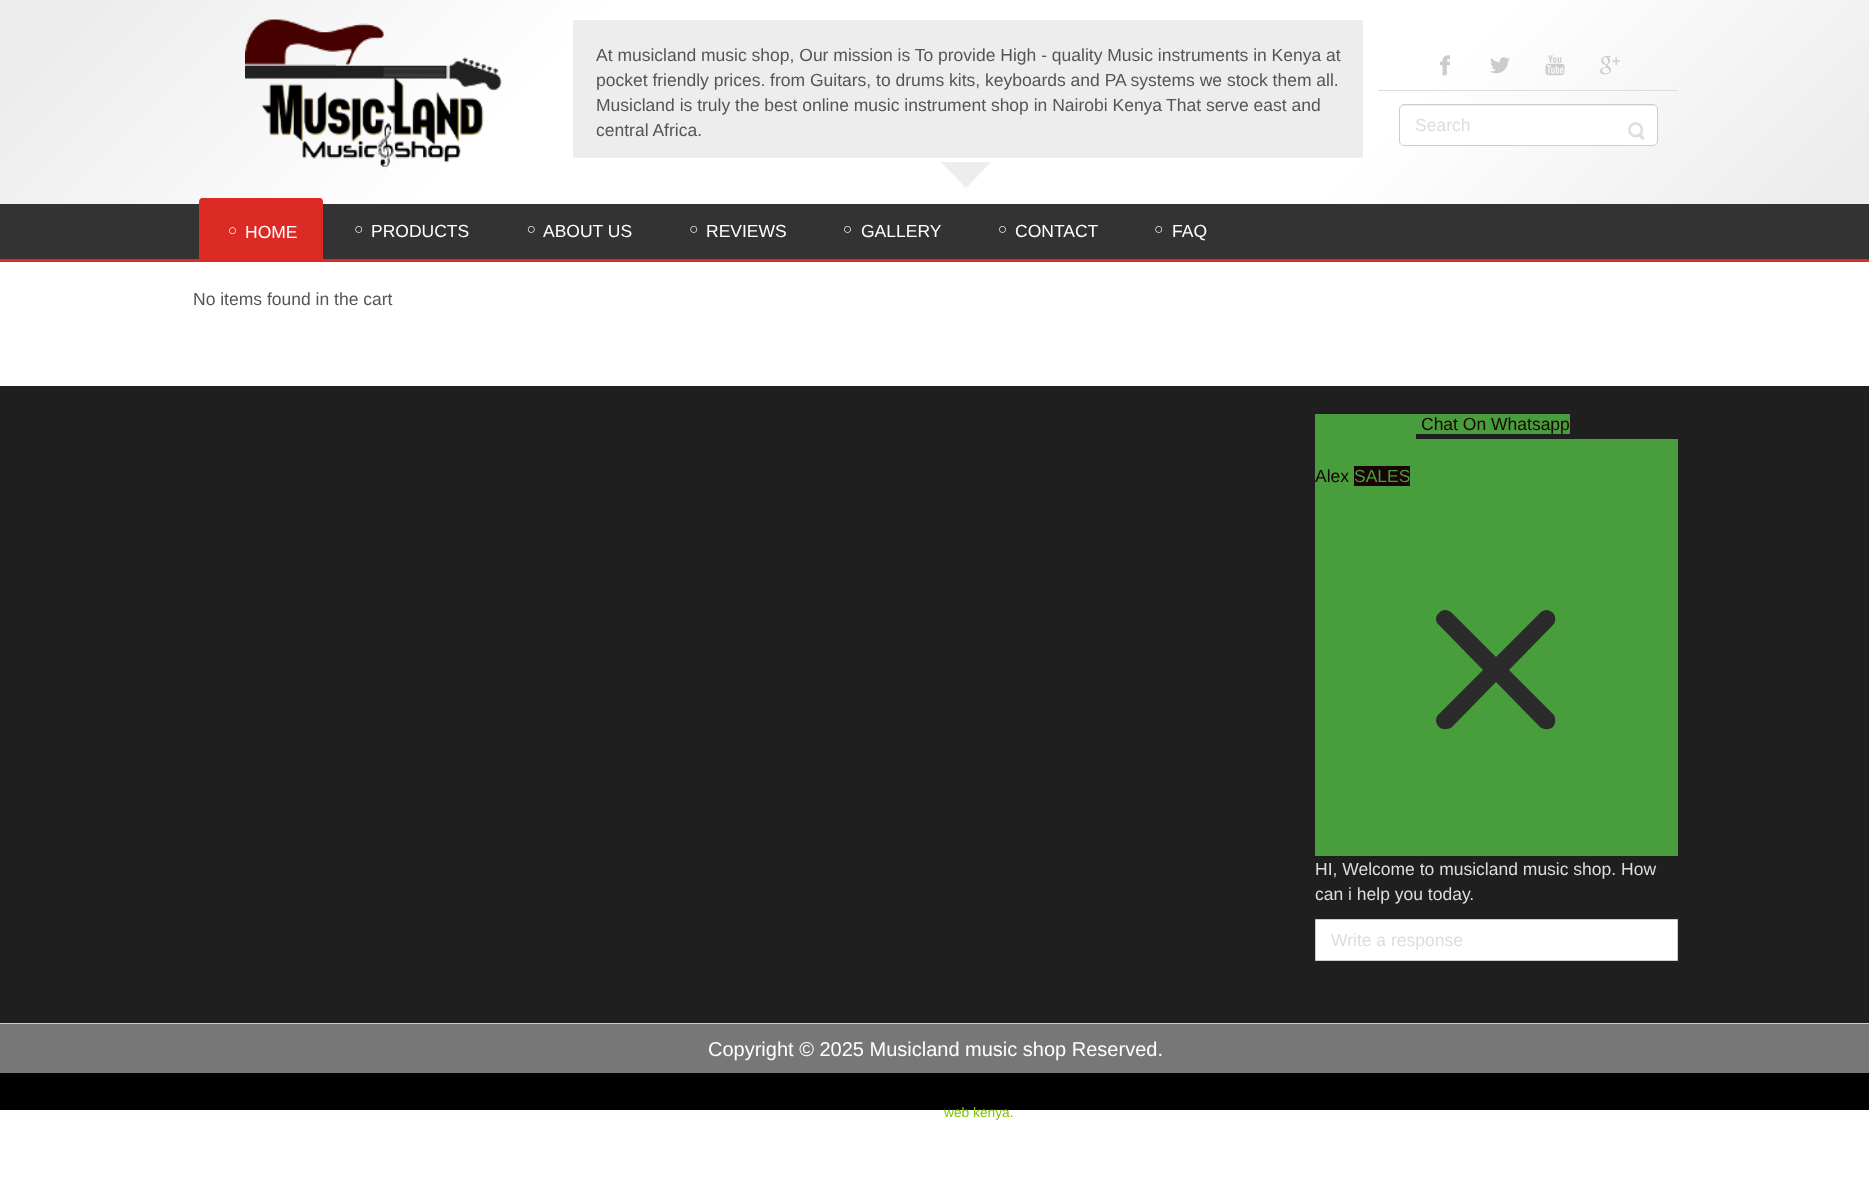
async function draw(canvas) {
  canvas.width = 1869;
  canvas.height = 1190;
  const ctx = canvas.getContext('2d');
  ctx.miterLimit = 4;
  ctx.fontKerning = 'normal';
  function label(s, x, y, font, color) {
    ctx.font = font;
    ctx.fillStyle = color;
    ctx.fillText(s, x, y);
  }
  function rect(x, y, w, h, color) {
    ctx.fillStyle = color;
    ctx.fillRect(x, y, w, h);
  }
  function roundedRect(x, y, w, h, r, color) {
    ctx.fillStyle = color;
    ctx.beginPath();
    ctx.roundRect(x, y, w, h, r);
    ctx.fill();
  }
  async function image(src, x, y, w, h) {
    const img = new Image();
    img.src = src;
    await img.decode();
    ctx.drawImage(img, x, y, w, h);
  }
  let gradient, path;

  rect(0, 0, 1869, 1190, '#fff');
  gradient = ctx.createLinearGradient(402, -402, 1468, 663);
  gradient.addColorStop(0.05, '#ededed');
  gradient.addColorStop(0.29, '#fff');
  gradient.addColorStop(0.71, '#fff');
  gradient.addColorStop(0.94, '#ededed');
  ctx.fillStyle = gradient;
  ctx.fillRect(0, 0, 1869, 204);
  await image('assets/img1.png', 245, 19, 257, 152);
  ctx.fillStyle = '#ededed';
  ctx.beginPath();
  ctx.roundRect(570.5, 17.5, 795, 143, 3.5);
  ctx.fill();
  ctx.strokeStyle = '#fff';
  ctx.lineWidth = 5;
  ctx.stroke();
  label('At musicland music shop, Our mission is To provide High - quality Music instruments in Kenya at', 596, 61, '17.5px Liberation Sans', '#555');
  label('pocket friendly prices. from Guitars, to drums kits, keyboards and PA systems we stock them all.', 596, 86, '17.5px Liberation Sans', '#555');
  label('Musicland is truly the best online music instrument shop in Nairobi Kenya', 596, 111, '17.5px Liberation Sans', '#555');
  label('That serve east and', 1166, 111, '17.5px Liberation Sans', '#555');
  label('central Africa.', 596, 136, '17.5px Liberation Sans', '#555');
  ctx.fillStyle = '#ededed';
  path = new Path2D('M941 162H991L966 188Z');
  ctx.fill(path);
  rect(1378, 90, 300, 1, '#ddd');
  await image('assets/img2.png', 1440, 55, 10, 21);
  await image('assets/img3.png', 1490, 57, 20, 17);
  await image('assets/img4.png', 1545, 55, 20, 21);
  await image('assets/img5.png', 1600, 56, 20, 19);
  roundedRect(1399, 104, 259, 42, 5, '#fff');
  ctx.fillStyle = '#ececec';
  path = new Path2D('M1404 106H1652C1655 106 1656 108 1656 110V109C1656 107 1654 105 1652 105H1404C1402 105 1400 107 1400 109V110C1400 108 1402 106 1404 106Z');
  ctx.fill(path);
  ctx.beginPath();
  ctx.roundRect(1399.5, 104.5, 258, 41, 4.5);
  ctx.strokeStyle = '#ccc';
  ctx.lineWidth = 1;
  ctx.stroke();
  label('Search', 1415, 131, '17.5px Liberation Sans', '#ddd');
  await image('assets/img6.png', 1628, 122, 17, 18);
  rect(0, 204, 1869, 55, '#333');
  rect(0, 259, 1869, 3, '#dc2a25');
  ctx.beginPath();
  ctx.roundRect(199, 198, 124, 61, [4, 4, 0, 0]);
  ctx.fill();
  rect(201, 198, 120, 1, '#dc2a25');
  await image('assets/img7.png', 229, 227, 7, 8);
  label('HOME', 245, 238, '17.5px Liberation Sans', '#fff');
  await image('assets/img8.png', 355, 226, 8, 7);
  label('PRODUCTS', 371, 237, '17.5px Liberation Sans', '#fff');
  await image('assets/img9.png', 527, 226, 8, 7);
  label('ABOUT US', 543, 237, '17.5px Liberation Sans', '#fff');
  await image('assets/img8.png', 690, 226, 8, 7);
  label('REVIEWS', 706, 237, '17.5px Liberation Sans', '#fff');
  await image('assets/img10.png', 844, 226, 7, 7);
  label('GALLERY', 861, 237, '17.5px Liberation Sans', '#fff');
  await image('assets/img10.png', 999, 226, 7, 7);
  label('CONTACT', 1015, 237, '17.5px Liberation Sans', '#fff');
  await image('assets/img8.png', 1155, 226, 8, 7);
  label('FAQ', 1172, 237, '17.5px Liberation Sans', '#fff');
  label('No items found in the cart', 193, 305, '17.5px Liberation Sans', '#555');
  rect(0, 386, 1869, 637, '#1f1f1f');
  rect(1416, 414, 154, 20, '#489e3c');
  label('Chat On Whatsapp', 1421, 430, '17.5px Liberation Sans', '#1a0505');
  rect(1315, 414, 101, 25, '#489e3c');
  rect(1315, 439, 363, 417, '#489e3c');
  label('Alex', 1315, 482, '17.5px Liberation Sans', '#1a0505');
  rect(1354, 466, 56, 20, '#1a0505');
  label('SALES', 1354, 482, '17.5px Liberation Sans', '#489e3c');
  ctx.fillStyle = '#2b2b2b';
  path = new Path2D('M1553 613C1549 609 1544 609 1540 613L1496 657L1452 613C1448 609 1442 609 1439 613C1435 616 1435 622 1439 625L1483 670L1439 714C1435 717 1435 723 1439 727C1442 730 1448 730 1452 727L1496 682L1540 727C1544 730 1549 730 1553 727C1556 723 1556 717 1553 714L1509 670L1553 625C1556 622 1556 616 1553 613Z');
  ctx.fill(path);
  label('HI, Welcome to musicland music shop. How', 1315, 875, '17.5px Liberation Sans', '#ddd');
  label('can i help you today.', 1315, 900, '17.5px Liberation Sans', '#ddd');
  ctx.fillStyle = '#fff';
  ctx.beginPath();
  ctx.rect(1315.5, 919.5, 362, 41);
  ctx.fill();
  ctx.stroke();
  label('Write a response', 1331, 946, '17.5px Liberation Sans', '#ddd');
  rect(0, 1024, 1869, 49, '#777');
  rect(0, 1023, 1869, 1, '#b3ff0b');
  label('Copyright © 2025 Musicland music shop Reserved.', 708, 1056, '20px Liberation Sans', '#fff');
  rect(0, 1073, 1869, 37, '#000');
  label('web kenya.', 944, 1117, '13.75px Liberation Sans', '#85c200');
}

draw(document.querySelector('canvas'));
